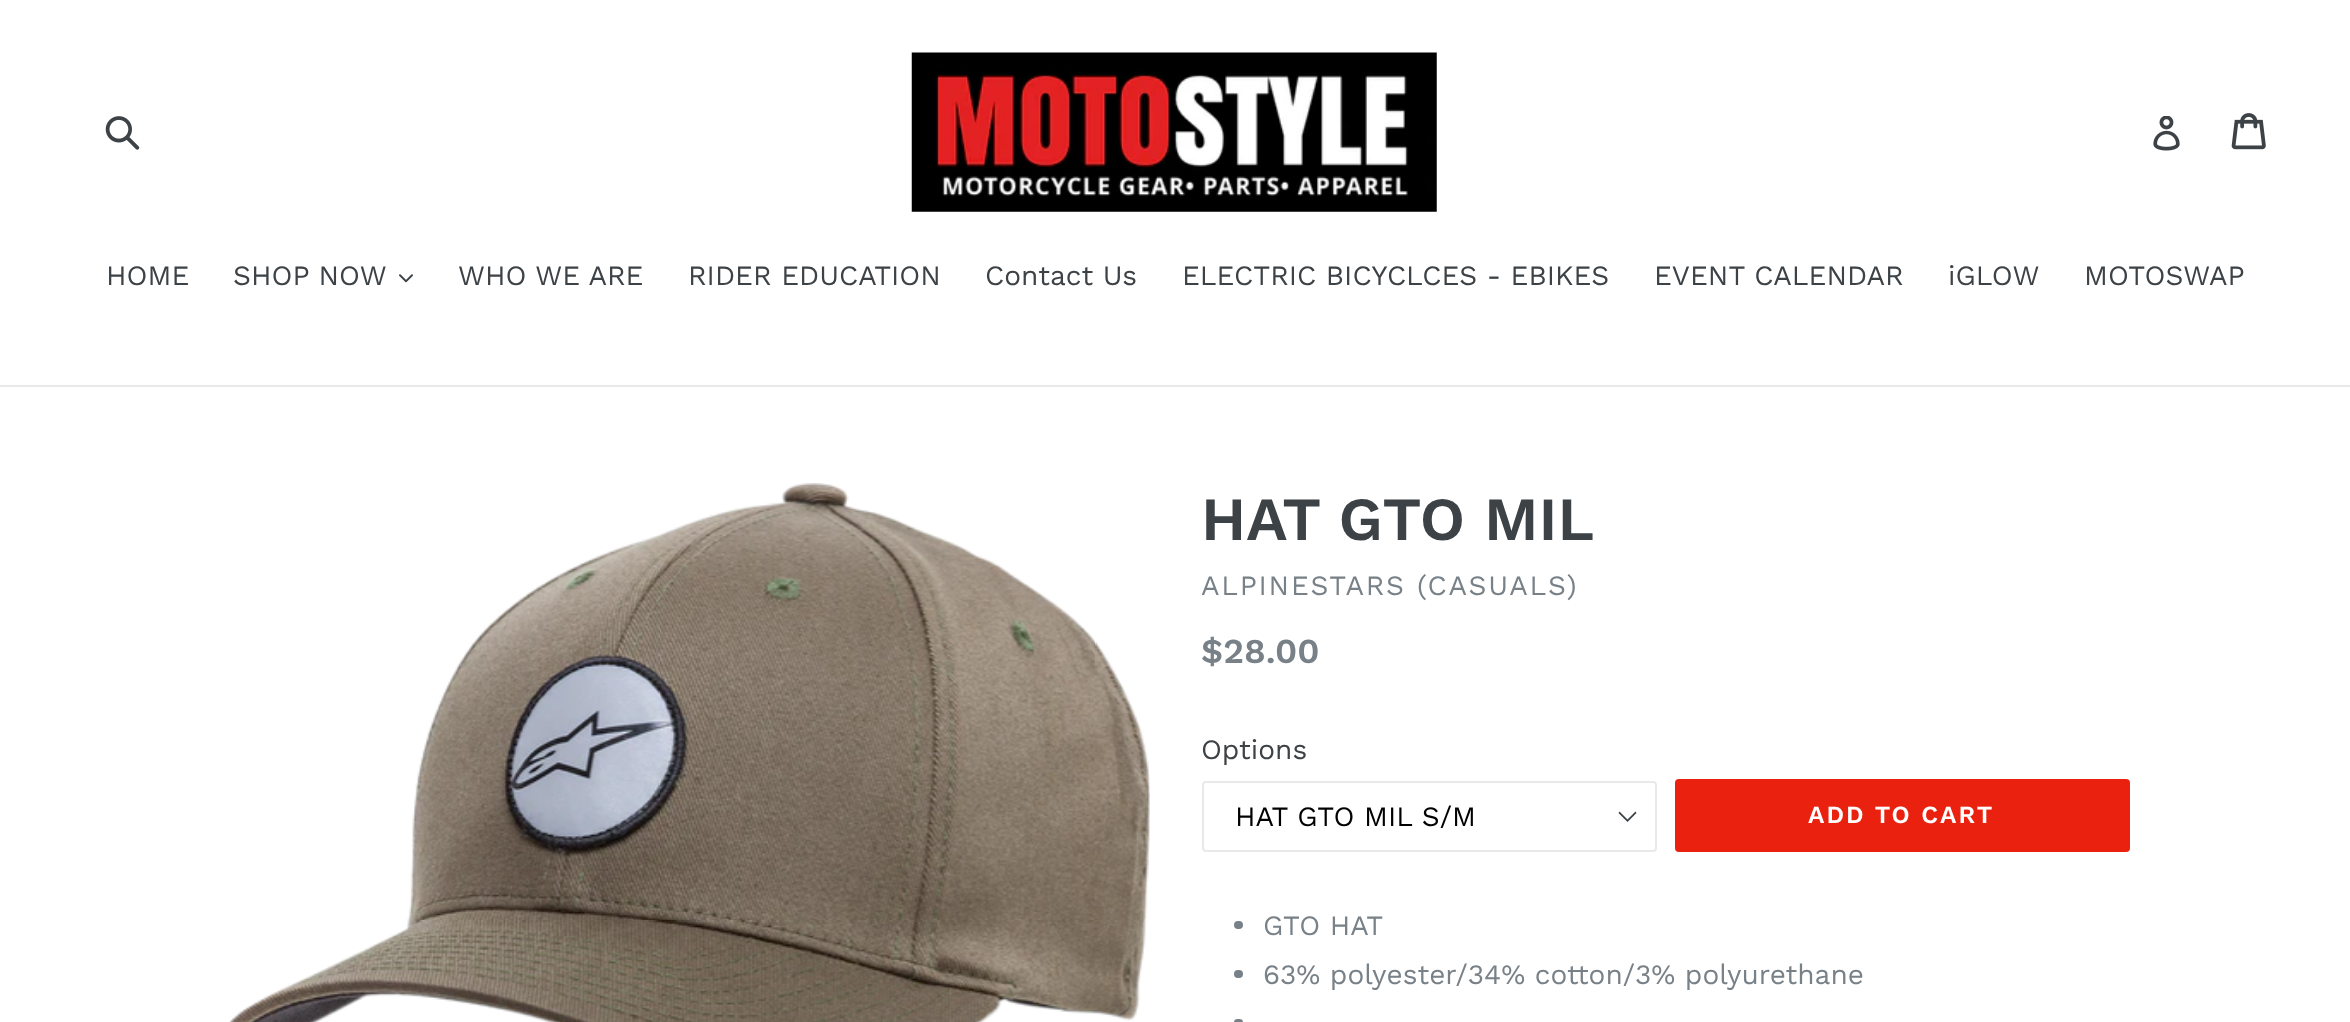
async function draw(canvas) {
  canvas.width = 2350;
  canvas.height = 1022;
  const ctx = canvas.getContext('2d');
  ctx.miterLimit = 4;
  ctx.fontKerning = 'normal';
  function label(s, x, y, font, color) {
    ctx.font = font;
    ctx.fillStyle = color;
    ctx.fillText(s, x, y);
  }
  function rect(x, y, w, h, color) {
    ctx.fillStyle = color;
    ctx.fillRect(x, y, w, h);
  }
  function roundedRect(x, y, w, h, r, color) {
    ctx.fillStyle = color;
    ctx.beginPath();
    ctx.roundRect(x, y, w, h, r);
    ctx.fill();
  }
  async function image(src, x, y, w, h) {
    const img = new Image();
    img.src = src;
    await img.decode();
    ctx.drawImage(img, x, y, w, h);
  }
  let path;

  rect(0, 0, 2350, 1022, '#fff');
  await image('assets/img1.png', 105, 116, 35, 34);
  await image('assets/img2.png', 911, 52, 526, 160);
  await image('assets/img3.png', 2153, 116, 27, 35);
  await image('assets/img4.png', 2231, 113, 35, 37);
  rect(0, 385, 2350, 2, '#e8e9eb');
  label('HOME', 106, 285, '28px Work Sans', '#3d4246');
  label('SHOP NOW', 233, 285, '28px Work Sans', '#3d4246');
  await image('assets/img5.png', 399, 274, 14, 9);
  label('WHO WE ARE', 458, 285, '28px Work Sans', '#3d4246');
  label('RIDER EDUCATION', 688, 285, '28px Work Sans', '#3d4246');
  label('Contact Us', 985, 285, '28px Work Sans', '#3d4246');
  label('ELECTRIC BICYCLCES - EBIKES', 1182, 285, '28px Work Sans', '#3d4246');
  label('EVENT CALENDAR', 1654, 285, '28px Work Sans', '#3d4246');
  label('iGLOW', 1948, 285, '28px Work Sans', '#3d4246');
  label('MOTOSWAP', 2084, 285, '28px Work Sans', '#3d4246');
  await image('assets/img6.png', 229, 483, 921, 539);
  label('HAT GTO MIL', 1201, 540, '600 61.25px Work Sans', '#3d4246');
  ctx.letterSpacing = '1.75px';
  label('ALPINESTARS (CASUALS)', 1201, 595, '28px Work Sans', '#788188');
  ctx.letterSpacing = '0px';
  label('$28.00', 1201, 663, '600 35px Work Sans', '#788188');
  label('Options', 1201, 759, '28px Work Sans', '#3d4246');
  path = new Path2D('M1627.5 822L1618.5 813L1619.5 811.5L1627.5 819.5L1635.5 811.5L1636.5 813Z');
  ctx.fill(path);
  ctx.beginPath();
  ctx.roundRect(1203, 782, 453, 69, 3);
  ctx.strokeStyle = '#e8e9eb';
  ctx.lineWidth = 2;
  ctx.stroke();
  label('HAT GTO MIL S/M', 1235, 826, '28px Work Sans', '#000');
  roundedRect(1675, 779, 455, 73, 4, '#eb2110');
  ctx.letterSpacing = '2px';
  label('ADD TO CART', 1808, 823, '600 24.5px Work Sans', '#fff');
  roundedRect(1234, 921, 9, 8, 4, '#788188');
  ctx.letterSpacing = '0px';
  label('GTO HAT', 1263, 935, '28px Work Sans', '#788188');
  roundedRect(1234, 970, 9, 8, 4, '#788188');
  label('63% polyester/34% cotton/3% polyurethane', 1263, 984, '28px Work Sans', '#788188');
  roundedRect(1234, 1019, 9, 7, 4, '#788188');
}

draw(document.querySelector('canvas'));
